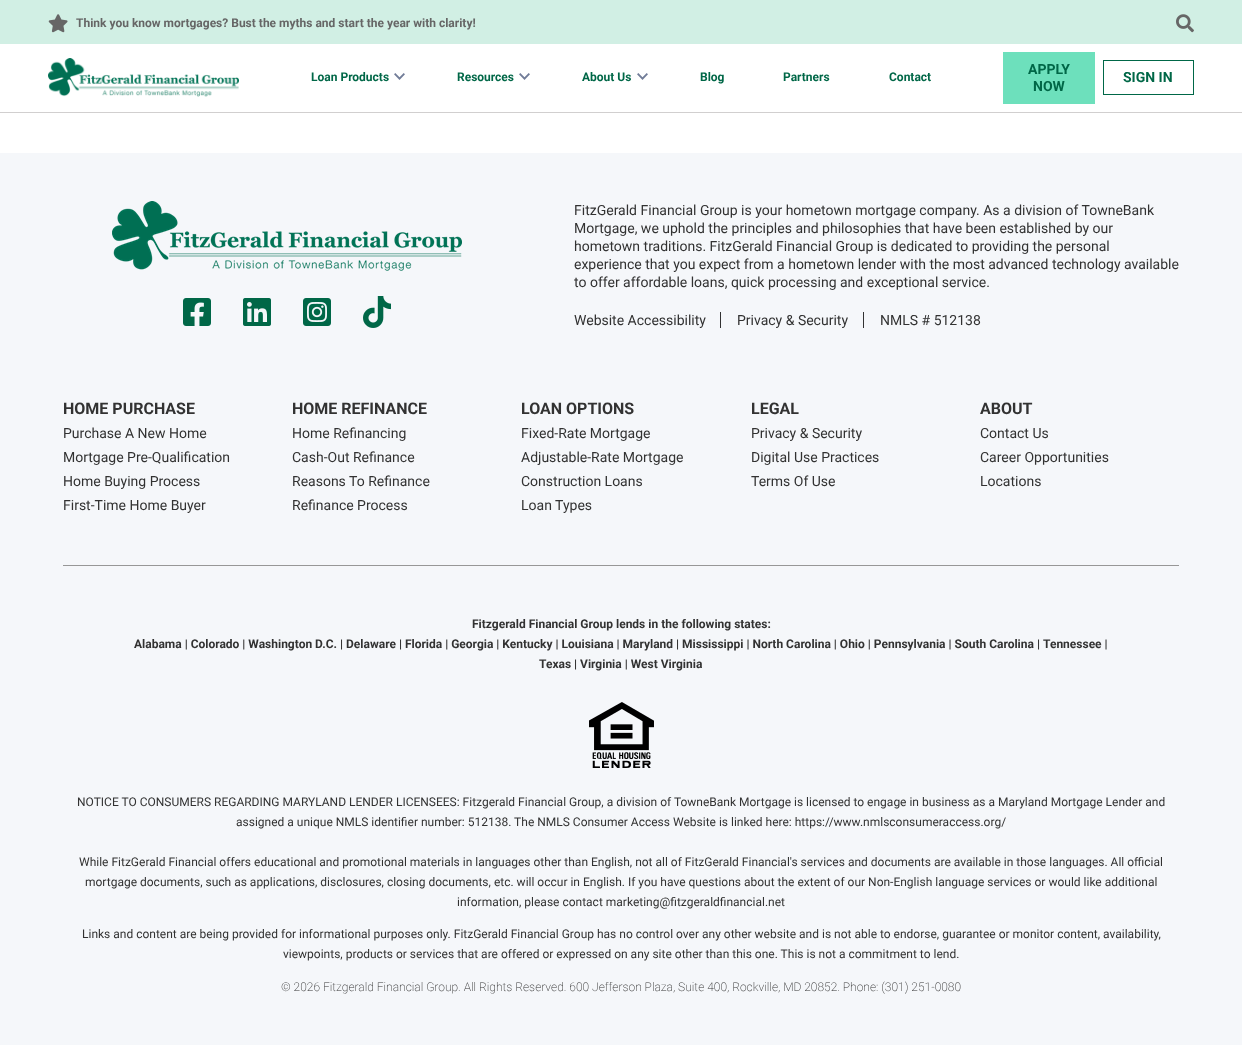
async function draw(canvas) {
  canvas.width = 1242;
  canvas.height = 1045;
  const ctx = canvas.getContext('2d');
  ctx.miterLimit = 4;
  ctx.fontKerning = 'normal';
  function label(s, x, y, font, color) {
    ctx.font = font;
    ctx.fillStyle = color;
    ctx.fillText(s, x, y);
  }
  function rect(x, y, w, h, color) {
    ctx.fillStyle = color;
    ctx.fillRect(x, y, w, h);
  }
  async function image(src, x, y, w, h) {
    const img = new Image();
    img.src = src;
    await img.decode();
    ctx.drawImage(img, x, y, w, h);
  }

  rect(0, 0, 1242, 1045, '#fff');
  rect(0, 0, 1242, 44, '#d1efe4');
  await image('assets/img1.png', 48, 14, 20, 19);
  label('Think you know mortgages? Bust the myths and start the year with clarity!', 76, 27, 'bold 12px Roboto', '#666');
  await image('assets/img2.png', 1176, 14, 18, 19);
  rect(0, 112, 1242, 1, '#d1cfcf');
  await image('assets/img3.png', 48, 58, 191, 39);
  label('Loan Products', 311, 81, 'bold 12px Roboto', '#006747');
  await image('assets/img4.png', 394, 73, 11, 7);
  label('Resources', 457, 81, 'bold 12px Roboto', '#006747');
  await image('assets/img4.png', 519, 73, 11, 7);
  label('About Us', 582, 81, 'bold 12px Roboto', '#006747');
  await image('assets/img4.png', 637, 73, 11, 7);
  label('Blog', 700, 81, 'bold 12px Roboto', '#006747');
  label('Partners', 783, 81, 'bold 12px Roboto', '#006747');
  label('Contact', 889, 81, 'bold 12px Roboto', '#006747');
  rect(1003, 52, 92, 52, '#6de0bc');
  label('APPLY', 1028, 74, 'bold 14px Roboto', '#006747');
  label('NOW', 1033, 91, 'bold 14px Roboto', '#006747');
  ctx.strokeStyle = '#006747';
  ctx.strokeRect(1103.5, 60.5, 90, 34);
  label('SIGN IN', 1123, 82, 'bold 14px Roboto', '#006747');
  rect(0, 153, 1242, 892, '#f5f7fa');
  await image('assets/img5.png', 112, 201, 350, 70);
  await image('assets/img6.png', 183, 298, 28, 28);
  await image('assets/img7.png', 243, 298, 28, 28);
  await image('assets/img8.png', 303, 298, 28, 28);
  await image('assets/img9.png', 363, 296, 28, 32);
  label('FitzGerald Financial Group is your hometown mortgage company. As a division of TowneBank', 574, 215, '14px Roboto', '#323232');
  label('Mortgage, we uphold the principles and philosophies that have been established by our', 574, 233, '14px Roboto', '#323232');
  label('hometown traditions. FitzGerald Financial Group is dedicated to providing the personal', 574, 251, '14px Roboto', '#323232');
  label('experience that you expect from a hometown lender with the most advanced technology available', 574, 269, '14px Roboto', '#323232');
  label('to offer affordable loans, quick processing and exceptional service.', 574, 287, '14px Roboto', '#323232');
  label('Website Accessibility', 574, 325, '14px Roboto', '#323232');
  rect(720, 312, 1, 16, '#323232');
  label('Privacy & Security', 737, 325, '14px Roboto', '#323232');
  rect(863, 312, 1, 16, '#323232');
  label('NMLS # 512138', 880, 325, '14px Roboto', '#323232');
  label('HOME PURCHASE', 63, 414, 'bold 16px Roboto', '#323232');
  label('Purchase A New Home', 63, 438, '14px Roboto', '#323232');
  label('Mortgage Pre-Qualification', 63, 462, '14px Roboto', '#323232');
  label('Home Buying Process', 63, 486, '14px Roboto', '#323232');
  label('First-Time Home Buyer', 63, 510, '14px Roboto', '#323232');
  label('HOME REFINANCE', 292, 414, 'bold 16px Roboto', '#323232');
  label('Home Refinancing', 292, 438, '14px Roboto', '#323232');
  label('Cash-Out Refinance', 292, 462, '14px Roboto', '#323232');
  label('Reasons To Refinance', 292, 486, '14px Roboto', '#323232');
  label('Refinance Process', 292, 510, '14px Roboto', '#323232');
  label('LOAN OPTIONS', 521, 414, 'bold 16px Roboto', '#323232');
  label('Fixed-Rate Mortgage', 521, 438, '14px Roboto', '#323232');
  label('Adjustable-Rate Mortgage', 521, 462, '14px Roboto', '#323232');
  label('Construction Loans', 521, 486, '14px Roboto', '#323232');
  label('Loan Types', 521, 510, '14px Roboto', '#323232');
  label('LEGAL', 751, 414, 'bold 16px Roboto', '#323232');
  label('Privacy & Security', 751, 438, '14px Roboto', '#323232');
  label('Digital Use Practices', 751, 462, '14px Roboto', '#323232');
  label('Terms Of Use', 751, 486, '14px Roboto', '#323232');
  label('ABOUT', 980, 414, 'bold 16px Roboto', '#323232');
  label('Contact Us', 980, 438, '14px Roboto', '#323232');
  label('Career Opportunities', 980, 462, '14px Roboto', '#323232');
  label('Locations', 980, 486, '14px Roboto', '#323232');
  rect(63, 565, 1116, 1, '#979797');
  label('Fitzgerald Financial Group lends in the following states:', 472, 628, 'bold 12px Roboto', '#323232');
  label('Alabama | Colorado | Washington D.C. | Delaware | Florida | Georgia | Kentucky | Louisiana | Maryland | Mississippi | North Carolina | Ohio | Pennsylvania | South Carolina |', 134, 648, 'bold 12px Roboto', '#323232');
  label('Tennessee |', 1043, 648, 'bold 12px Roboto', '#323232');
  label('Texas | Virginia | West Virginia', 539, 668, 'bold 12px Roboto', '#323232');
  await image('assets/img10.png', 589, 702, 65, 66);
  label('NOTICE TO CONSUMERS REGARDING MARYLAND LENDER LICENSEES: Fitzgerald Financial Group, a division of TowneBank Mortgage is licensed to engage in business as a Maryland Mortgage Lender and', 77, 806, '12px Roboto', '#323232');
  label('assigned a unique NMLS identifier number: 512138. The NMLS Consumer Access Website is linked here: https://www.nmlsconsumeraccess.org/', 236, 826, '12px Roboto', '#323232');
  label('While FitzGerald Financial offers educational and promotional materials in languages other than English, not all of FitzGerald Financial\'s services and documents are available in those languages. All official', 79, 866, '12px Roboto', '#323232');
  label('mortgage documents, such as applications, disclosures, closing documents, etc. will occur in English. If you have questions about the extent of our Non-English language services or would like additional', 85, 886, '12px Roboto', '#323232');
  label('information, please contact marketing@fitzgeraldfinancial.net', 457, 906, '12px Roboto', '#323232');
  label('Links and content are being provided for informational purposes only. FitzGerald Financial Group has no control over any other website and is not able to endorse, guarantee or monitor content, availability,', 82, 938, '12px Roboto', '#323232');
  label('viewpoints, products or services that are offered or expressed on any site other than this one. This is not a commitment to lend.', 283, 958, '12px Roboto', '#323232');
  label('© 2026 Fitzgerald Financial Group. All Rights Reserved. 600 Jefferson Plaza, Suite 400, Rockville, MD 20852. Phone: (301) 251-0080', 281, 991, '200 12px Roboto', '#323232');
}

draw(document.querySelector('canvas'));
